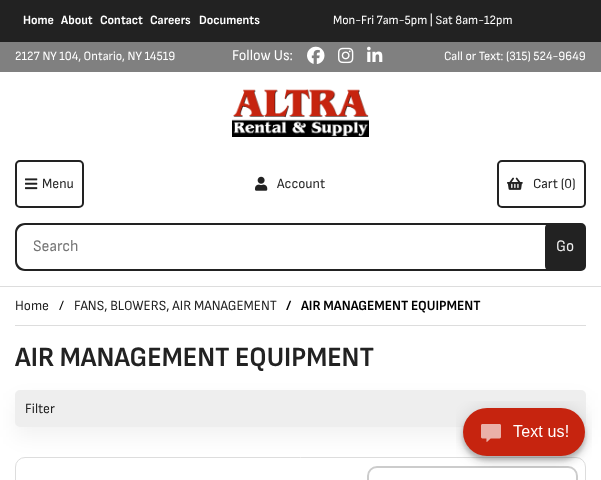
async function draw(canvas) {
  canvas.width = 601;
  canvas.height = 480;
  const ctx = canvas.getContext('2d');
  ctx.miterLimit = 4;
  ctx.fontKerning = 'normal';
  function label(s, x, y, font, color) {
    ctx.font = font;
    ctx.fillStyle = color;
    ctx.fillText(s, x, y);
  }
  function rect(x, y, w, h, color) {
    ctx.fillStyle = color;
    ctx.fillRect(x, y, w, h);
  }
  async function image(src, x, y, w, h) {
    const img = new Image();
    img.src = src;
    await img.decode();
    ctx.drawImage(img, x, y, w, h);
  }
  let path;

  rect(0, 0, 601, 480, '#fff');
  rect(0, 0, 601, 42, '#222');
  label('Home', 23, 24, 'bold 12.6px Sofia Sans Semi Condensed', '#fff');
  label('About', 61, 24, 'bold 12.6px Sofia Sans Semi Condensed', '#fff');
  label('Contact', 100, 24, 'bold 12.6px Sofia Sans Semi Condensed', '#fff');
  label('Careers', 150, 24, 'bold 12.6px Sofia Sans Semi Condensed', '#fff');
  label('Documents', 199, 24, 'bold 12.6px Sofia Sans Semi Condensed', '#fff');
  label('Mon-Fri 7am-5pm | Sat 8am-12pm', 333, 24, '12.6px Sofia Sans Semi Condensed', '#fff');
  rect(0, 42, 601, 30, '#808080');
  label('2127 NY 104, Ontario, NY 14519', 15, 60, '12.6px Sofia Sans Semi Condensed', '#fff');
  label('Follow Us:', 232, 60, '15px Sofia Sans Semi Condensed', '#fff');
  await image('assets/img1.png', 307, 46, 18, 18);
  await image('assets/img2.png', 338, 47, 16, 17);
  await image('assets/img3.png', 367, 46, 16, 16);
  label('Call or Text: (315) 524-9649', 444, 60, '12.6px Sofia Sans Semi Condensed', '#fff');
  rect(0, 286, 601, 1, '#ddd');
  await image('assets/img4.png', 232, 89, 137, 48);
  ctx.beginPath();
  ctx.roundRect(16, 161, 67, 46, 4);
  ctx.strokeStyle = '#222';
  ctx.lineWidth = 2;
  ctx.stroke();
  await image('assets/img5.png', 25, 178, 13, 12);
  label('Menu', 42, 188, '14px Sofia Sans Semi Condensed', '#222');
  await image('assets/img6.png', 255, 176, 13, 15);
  label('Account', 277, 188, '14px Sofia Sans Semi Condensed', '#222');
  ctx.beginPath();
  ctx.roundRect(498, 161, 87, 46, 4);
  ctx.stroke();
  await image('assets/img7.png', 507, 177, 16, 13);
  label('Cart (0)', 533, 188, '14px Sofia Sans Semi Condensed', '#222');
  path = new Path2D('M25 223H560V271H25C19 271 15 267 15 261V233C15 227 19 223 25 223ZM25 225H560V269H25C21 269 17 265 17 261V233C17 229 21 225 25 225Z');
  ctx.fill(path, 'evenodd');
  label('Search', 33, 251, '16px Sofia Sans Semi Condensed', '#757575');
  ctx.fillStyle = '#222';
  ctx.beginPath();
  ctx.roundRect(546, 224, 39, 46, 4);
  ctx.fill();
  ctx.stroke();
  label('Go', 556, 251, '16px Sofia Sans Semi Condensed', '#eee');
  rect(15, 325, 571, 1, '#ddd');
  label('Home', 15, 310, '14px Sofia Sans Semi Condensed', '#222');
  label('/', 59, 310, '14px Sofia Sans Semi Condensed', '#000');
  label('FANS, BLOWERS, AIR MANAGEMENT', 74, 310, '14px Sofia Sans Semi Condensed', '#222');
  label('/', 286, 310, 'bold 14px Sofia Sans Semi Condensed', '#000');
  label('AIR MANAGEMENT EQUIPMENT', 301, 310, 'bold 14px Sofia Sans Semi Condensed', '#000');
  ctx.fillStyle = '#0000000d';
  ctx.filter = 'blur(10px)';
  ctx.beginPath();
  ctx.rect(15, 400, 571, 37);
  ctx.fill();
  ctx.filter = 'none';
  label('AIR MANAGEMENT EQUIPMENT', 15, 366, 'bold 28px Sofia Sans Semi Condensed', '#222');
  ctx.fillStyle = '#eee';
  ctx.beginPath();
  ctx.roundRect(16, 391, 569, 35, 4);
  ctx.fill();
  ctx.strokeStyle = '#eee';
  ctx.stroke();
  label('Filter', 25, 413, '14px Sofia Sans Semi Condensed', '#222');
  ctx.beginPath();
  ctx.roundRect(15.5, 457.5, 570, 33, 9.5);
  ctx.strokeStyle = '#ddd';
  ctx.lineWidth = 1;
  ctx.stroke();
  ctx.beginPath();
  ctx.roundRect(368, 467, 209, 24, 9);
  ctx.strokeStyle = '#ccc';
  ctx.lineWidth = 2;
  ctx.stroke();
  await image('assets/img8.png', 456, 401, 136, 67);
}

draw(document.querySelector('canvas'));
